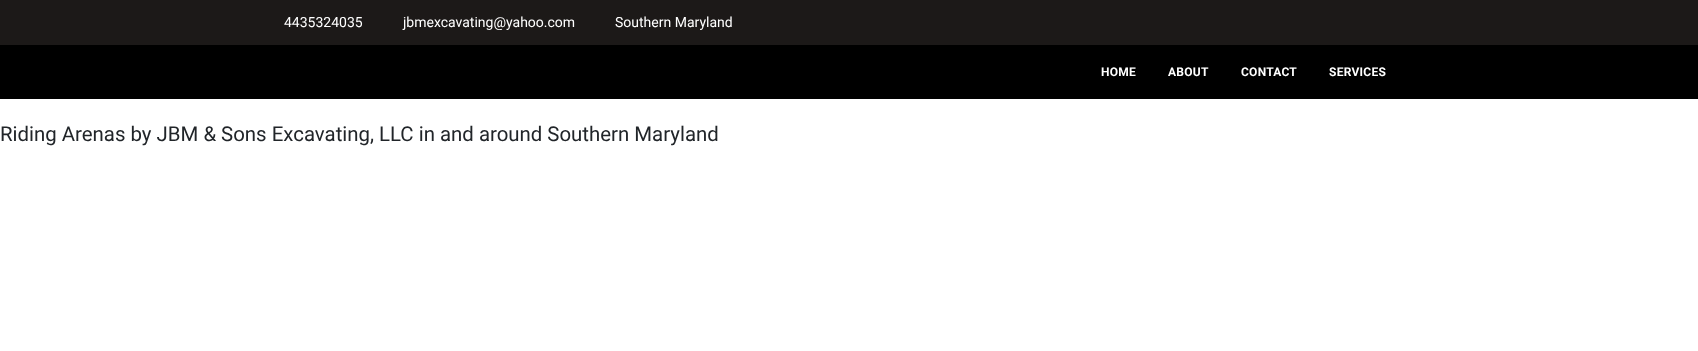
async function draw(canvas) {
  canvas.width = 1698;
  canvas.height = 351;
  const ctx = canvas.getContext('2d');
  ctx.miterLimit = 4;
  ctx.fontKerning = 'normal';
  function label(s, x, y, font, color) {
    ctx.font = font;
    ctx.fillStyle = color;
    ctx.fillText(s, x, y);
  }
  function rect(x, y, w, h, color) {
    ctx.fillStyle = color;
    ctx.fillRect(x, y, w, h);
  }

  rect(0, 0, 1698, 351, '#fff');
  rect(0, 0, 1698, 45, '#1c1918');
  label('4435324035', 284, 27, '14px Roboto', '#fff');
  label('jbmexcavating@yahoo.com', 403, 27, '14px Roboto', '#fff');
  label('Southern Maryland', 615, 27, '14px Roboto', '#fff');
  rect(0, 45, 1698, 54, '#000');
  ctx.letterSpacing = '0.25px';
  label('HOME', 1101, 76, 'bold 12px Roboto', '#fff');
  label('ABOUT', 1168, 76, 'bold 12px Roboto', '#fff');
  label('CONTACT', 1241, 76, 'bold 12px Roboto', '#fff');
  label('SERVICES', 1329, 76, 'bold 12px Roboto', '#fff');
  ctx.letterSpacing = '0px';
  label('Riding Arenas by JBM & Sons Excavating, LLC in and around Southern Maryland', 0, 141, '20.4px Roboto', '#212529');
}

draw(document.querySelector('canvas'));
